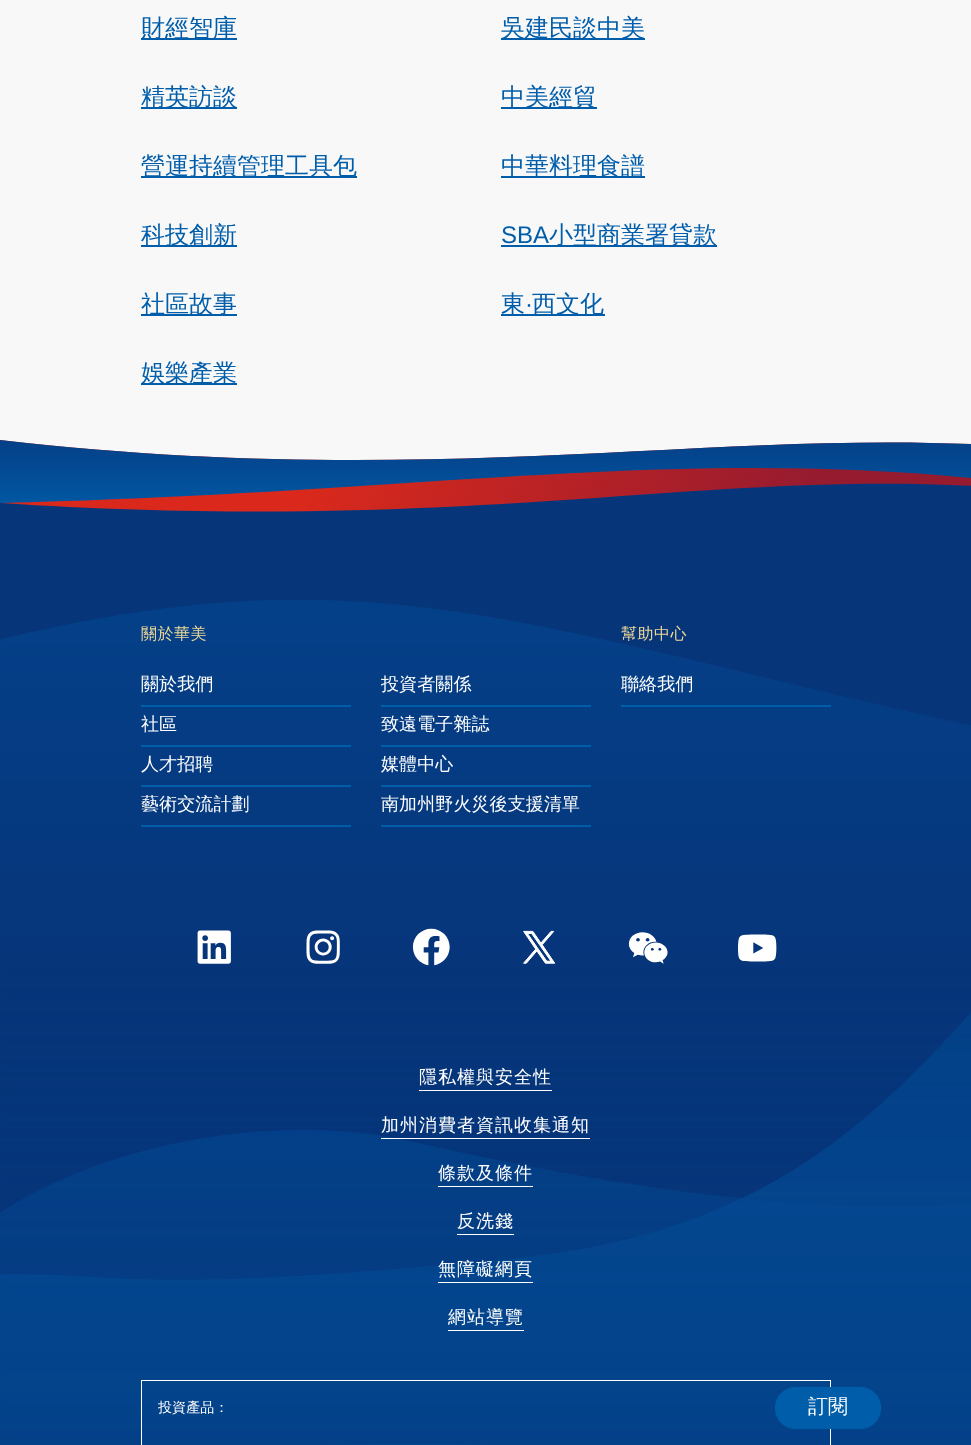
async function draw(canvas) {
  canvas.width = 971;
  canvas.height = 1445;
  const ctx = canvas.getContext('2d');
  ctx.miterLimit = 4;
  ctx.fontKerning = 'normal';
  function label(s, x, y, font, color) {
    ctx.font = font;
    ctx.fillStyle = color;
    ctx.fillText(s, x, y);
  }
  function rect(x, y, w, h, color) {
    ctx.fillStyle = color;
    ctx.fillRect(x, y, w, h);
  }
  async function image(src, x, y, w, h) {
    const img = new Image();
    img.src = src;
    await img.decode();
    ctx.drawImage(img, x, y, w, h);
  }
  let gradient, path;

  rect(0, 0, 971, 1445, '#f8f8f8');
  rect(141, 38, 96, 2, '#005daa');
  label('財經智庫', 141, 36, '500 24px WenQuanYi Zen Hei', '#005daa');
  rect(501, 38, 144, 2, '#005daa');
  label('吳建民談中美', 501, 36, '500 24px WenQuanYi Zen Hei', '#005daa');
  rect(141, 107, 96, 2, '#005daa');
  label('精英訪談', 141, 105, '500 24px WenQuanYi Zen Hei', '#005daa');
  rect(501, 107, 96, 2, '#005daa');
  label('中美經貿', 501, 105, '500 24px WenQuanYi Zen Hei', '#005daa');
  rect(141, 176, 216, 2, '#005daa');
  label('營運持續管理工具包', 141, 174, '500 24px WenQuanYi Zen Hei', '#005daa');
  rect(501, 176, 144, 2, '#005daa');
  label('中華料理食譜', 501, 174, '500 24px WenQuanYi Zen Hei', '#005daa');
  rect(141, 245, 96, 2, '#005daa');
  label('科技創新', 141, 243, '500 24px WenQuanYi Zen Hei', '#005daa');
  label('SBA', 501, 243, '24px Liberation Sans', '#005daa');
  rect(501, 245, 216, 2, '#005daa');
  label('小型商業署貸款', 549, 243, '500 24px WenQuanYi Zen Hei', '#005daa');
  rect(141, 314, 96, 2, '#005daa');
  label('社區故事', 141, 312, '500 24px WenQuanYi Zen Hei', '#005daa');
  rect(501, 314, 104, 2, '#005daa');
  label('東', 501, 312, '500 24px WenQuanYi Zen Hei', '#005daa');
  label('·', 525, 312, '24px Liberation Sans', '#005daa');
  label('西文化', 532, 312, '500 24px WenQuanYi Zen Hei', '#005daa');
  rect(141, 383, 96, 2, '#005daa');
  label('娛樂產業', 141, 381, '500 24px WenQuanYi Zen Hei', '#005daa');
  ctx.fillStyle = '#06357a';
  path = new Path2D('M0 492C803 482 886 443 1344 525V552H0Z');
  ctx.fill(path);
  gradient = ctx.createLinearGradient(764, 597, 330, 425);
  gradient.addColorStop(0, '#971b2f');
  gradient.addColorStop(1, '#da291c');
  ctx.fillStyle = gradient;
  path = new Path2D('M0 440V503C652 545 819 411 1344 545V509C897 366 599 509 0 440Z');
  ctx.fill(path);
  gradient = ctx.createLinearGradient(672, 521, 672, 410);
  gradient.addColorStop(0, '#005daa');
  gradient.addColorStop(1, '#06357a');
  ctx.fillStyle = gradient;
  path = new Path2D('M0 440V503C561 490 820 411 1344 545V509C897 366 599 509 0 440Z');
  ctx.fill(path);
  rect(0, 552, 971, 893, '#06357a');
  await image('assets/img1.png', 0, 600, 971, 845);
  ctx.letterSpacing = '0.5px';
  label('關於華美', 141, 639, '500 16px WenQuanYi Zen Hei', '#ecd898');
  rect(141, 705, 210, 2, '#005daa');
  ctx.letterSpacing = '0.1px';
  label('關於我們', 141, 690, '500 18px WenQuanYi Zen Hei', '#fff');
  rect(141, 745, 210, 2, '#005daa');
  label('社區', 141, 730, '500 18px WenQuanYi Zen Hei', '#fff');
  rect(141, 785, 210, 2, '#005daa');
  label('人才招聘', 141, 770, '500 18px WenQuanYi Zen Hei', '#fff');
  rect(141, 825, 210, 2, '#005daa');
  label('藝術交流計劃', 141, 810, '500 18px WenQuanYi Zen Hei', '#fff');
  ctx.letterSpacing = '0.5px';
  label('幫助中心', 621, 639, '500 16px WenQuanYi Zen Hei', '#ecd898');
  rect(621, 705, 210, 2, '#005daa');
  ctx.letterSpacing = '0.1px';
  label('聯絡我們', 621, 690, '500 18px WenQuanYi Zen Hei', '#fff');
  rect(381, 705, 210, 2, '#005daa');
  label('投資者關係', 381, 690, '500 18px WenQuanYi Zen Hei', '#fff');
  rect(381, 745, 210, 2, '#005daa');
  label('致遠電子雜誌', 381, 730, '500 18px WenQuanYi Zen Hei', '#fff');
  rect(381, 785, 210, 2, '#005daa');
  label('媒體中心', 381, 770, '500 18px WenQuanYi Zen Hei', '#fff');
  rect(381, 825, 210, 2, '#005daa');
  label('南加州野火災後支援清單', 381, 810, '500 18px WenQuanYi Zen Hei', '#fff');
  await image('assets/img2.png', 197, 930, 34, 34);
  await image('assets/img3.png', 306, 930, 34, 34);
  await image('assets/img4.png', 412, 928, 38, 38);
  await image('assets/img5.png', 522, 930, 34, 34);
  await image('assets/img6.png', 628, 932, 40, 32);
  await image('assets/img7.png', 737, 934, 40, 28);
  ctx.letterSpacing = '1px';
  label('隱私權與安全性', 419, 1083, '500 18px WenQuanYi Zen Hei', '#fff');
  rect(419, 1090, 133, 1, '#fff');
  label('加州消費者資訊收集通知', 381, 1131, '500 18px WenQuanYi Zen Hei', '#fff');
  rect(381, 1138, 209, 1, '#fff');
  label('條款及條件', 438, 1179, '500 18px WenQuanYi Zen Hei', '#fff');
  rect(438, 1186, 95, 1, '#fff');
  label('反洗錢', 457, 1227, '500 18px WenQuanYi Zen Hei', '#fff');
  rect(457, 1234, 57, 1, '#fff');
  label('無障礙網頁', 438, 1275, '500 18px WenQuanYi Zen Hei', '#fff');
  rect(438, 1282, 95, 1, '#fff');
  label('網站導覽', 448, 1323, '500 18px WenQuanYi Zen Hei', '#fff');
  rect(448, 1330, 76, 1, '#fff');
  ctx.strokeStyle = '#fff';
  ctx.strokeRect(141.5, 1380.5, 689, 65);
  ctx.letterSpacing = '0.1px';
  label('投資產品：', 158, 1412, '500 14px WenQuanYi Zen Hei', '#fff');
  ctx.fillStyle = '#005daa';
  ctx.beginPath();
  ctx.roundRect(775.5, 1387.5, 105, 41, 19.5);
  ctx.fill();
  ctx.strokeStyle = '#005daa';
  ctx.stroke();
  ctx.letterSpacing = '0px';
  label('訂閱', 808, 1413, '500 20px WenQuanYi Zen Hei', '#fff');
}

draw(document.querySelector('canvas'));
